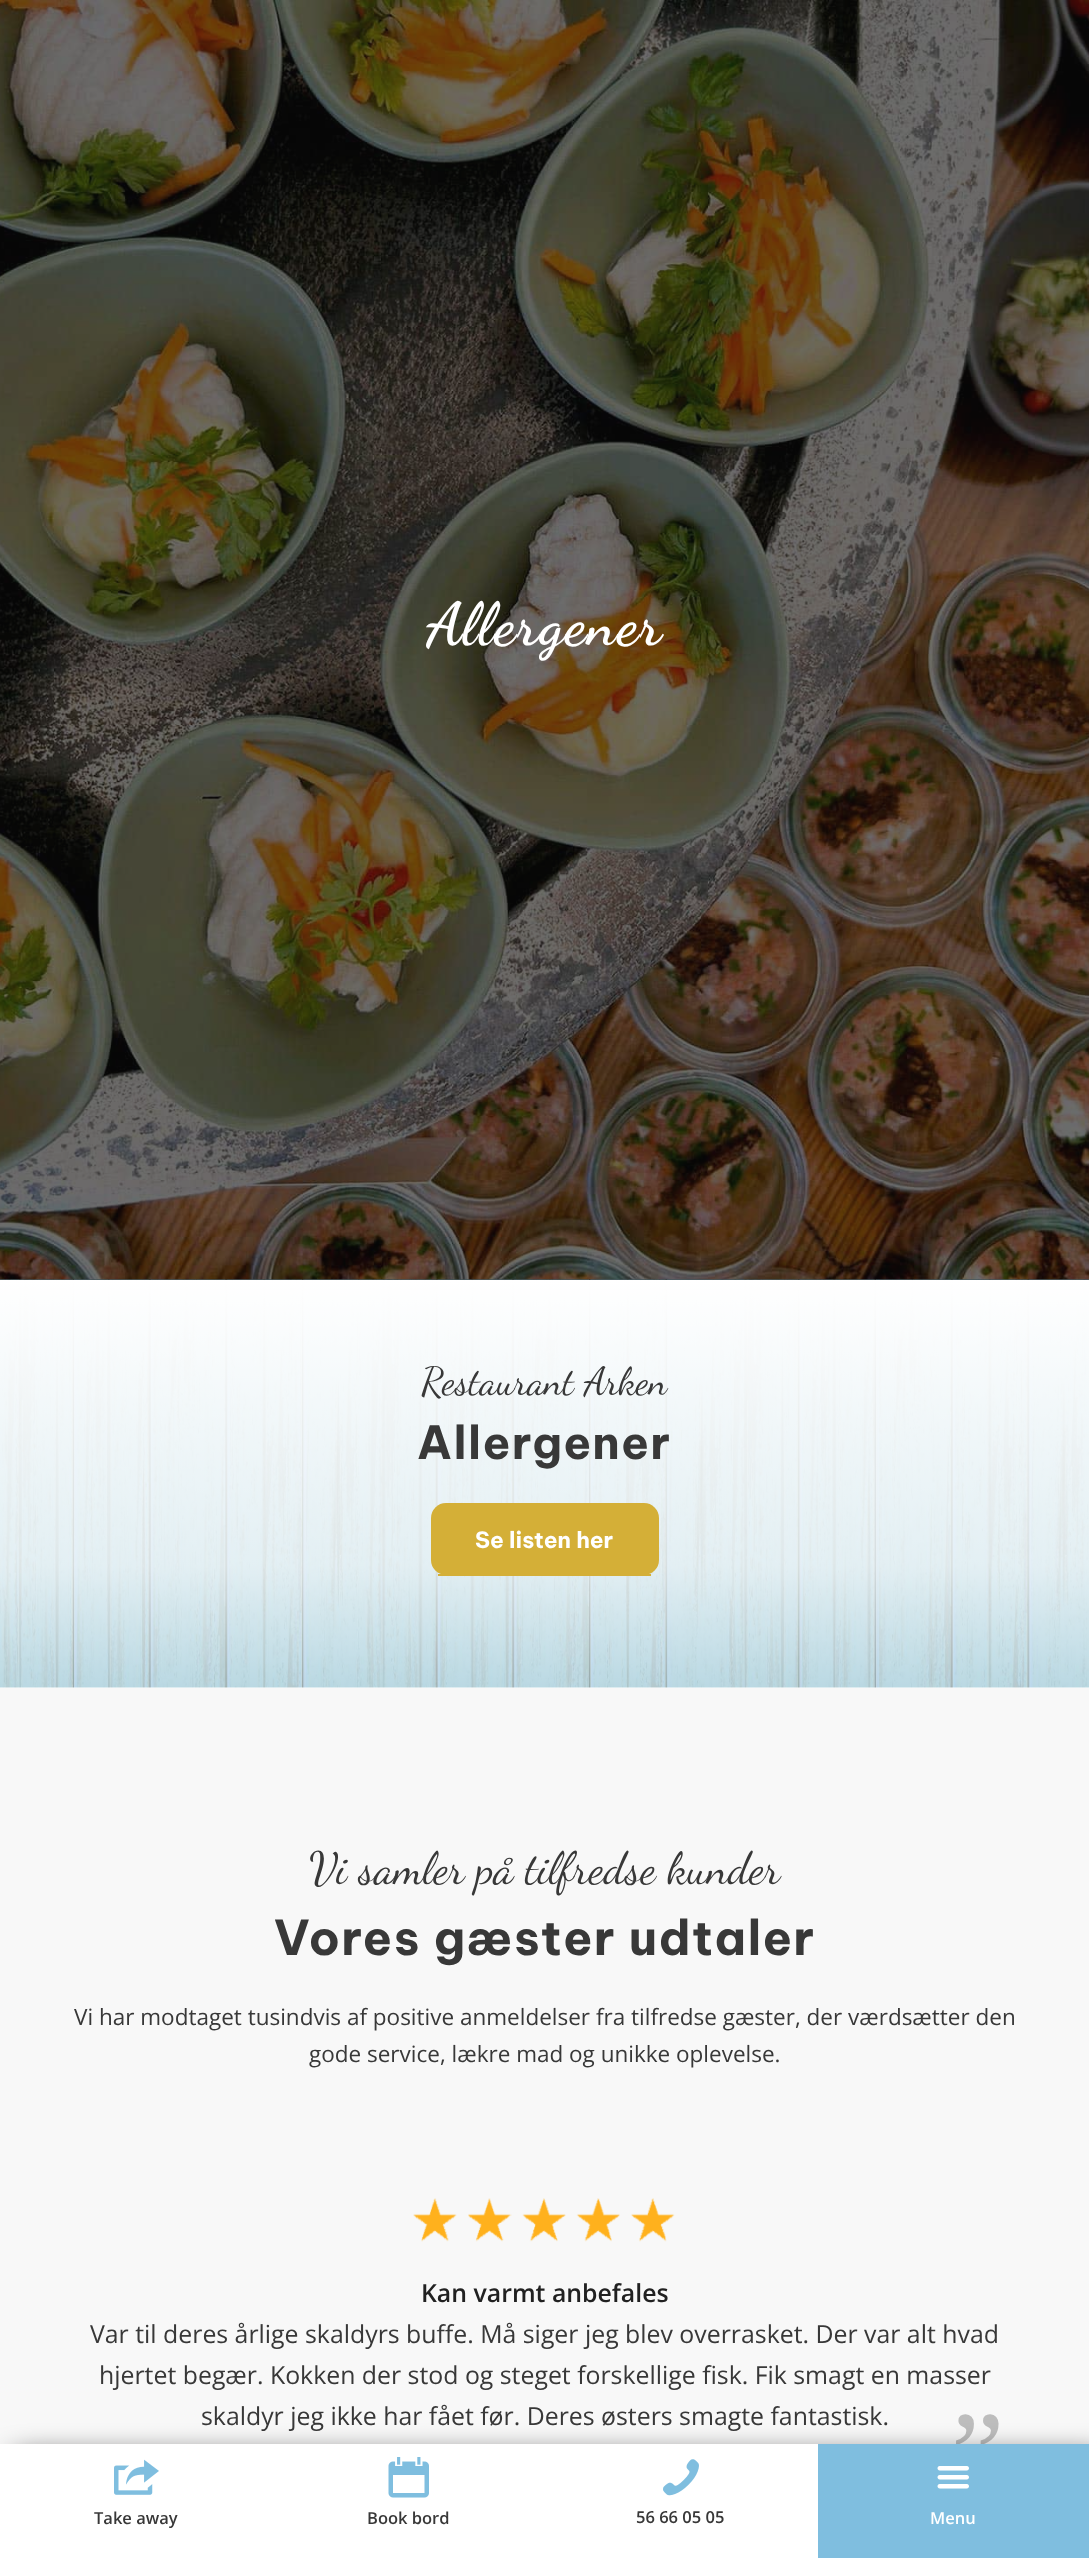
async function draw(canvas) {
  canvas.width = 1089;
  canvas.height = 2558;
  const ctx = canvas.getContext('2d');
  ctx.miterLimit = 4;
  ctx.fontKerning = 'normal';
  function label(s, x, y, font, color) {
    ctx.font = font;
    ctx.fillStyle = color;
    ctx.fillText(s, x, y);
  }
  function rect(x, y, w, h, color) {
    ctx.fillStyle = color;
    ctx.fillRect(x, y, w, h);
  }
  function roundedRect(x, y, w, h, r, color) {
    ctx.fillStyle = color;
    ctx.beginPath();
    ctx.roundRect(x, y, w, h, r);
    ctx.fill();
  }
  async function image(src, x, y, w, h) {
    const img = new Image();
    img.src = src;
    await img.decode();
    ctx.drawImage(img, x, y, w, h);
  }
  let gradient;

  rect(0, 0, 1089, 2558, '#fff');
  await image('assets/img1.png', 0, 0, 1089, 1280);
  await image('assets/img2.png', 0, 1279, 1089, 409);
  rect(0, 0, 1089, 1280, '#0a0a0a99');
  ctx.letterSpacing = '1.5px';
  label('Allergener', 426, 644, 'bold 60px Dancing Script', '#fff');
  gradient = ctx.createLinearGradient(545, 1280, 545, 1688);
  gradient.addColorStop(0, '#fff');
  gradient.addColorStop(0.7, '#ffffffcc');
  gradient.addColorStop(1, '#ffffff80');
  ctx.fillStyle = gradient;
  ctx.fillRect(0, 1280, 1089, 408);
  ctx.letterSpacing = '0px';
  label('Restaurant Arken', 421, 1394, '39px Dancing Script', '#383838');
  ctx.letterSpacing = '1.5px';
  label('Allergener', 417, 1459, 'bold 45.5px Be Vietnam Pro', '#383838');
  roundedRect(431, 1503, 228, 72, 15, '#d4af37');
  rect(438, 1574, 213, 2, '#d4af37');
  ctx.letterSpacing = '0px';
  label('Se listen her', 475, 1548, 'bold 22.5px Be Vietnam Pro', '#fff');
  rect(0, 1688, 1089, 756, '#f8f8f8');
  label('Vi samler på tilfredse kunder', 309, 1883, '45px Dancing Script', '#383838');
  ctx.letterSpacing = '1.5px';
  label('Vores gæster udtaler', 274, 1955, 'bold 48px Be Vietnam Pro', '#383838');
  ctx.letterSpacing = '0px';
  label('Vi har modtaget tusindvis af positive anmeldelser fra tilfredse gæster, der værdsætter den', 74, 2025, '22.5px Open Sans', '#383838');
  label('gode service, lækre mad og unikke oplevelse.', 309, 2062, '22.5px Open Sans', '#383838');
  await image('assets/img3.png', 413, 2198, 262, 44);
  label('Kan varmt anbefales', 421, 2302, '600 24.85px Open Sans', '#212121');
  label('Var til deres årlige skaldyrs buffe. Må siger jeg blev overrasket. Der var alt hvad', 90, 2343, '24.85px Open Sans', '#383838');
  label('hjertet begær. Kokken der stod og steget forskellige fisk. Fik smagt en masser', 99, 2384, '24.85px Open Sans', '#383838');
  label('skaldyr jeg ikke har fået før. Deres østers smagte fantastisk.', 201, 2425, '24.85px Open Sans', '#383838');
  label('”', 951, 2494, '120px Liberation Serif', '#bdbdbd');
  ctx.fillStyle = '#000';
  ctx.filter = 'blur(15px)';
  ctx.beginPath();
  ctx.rect(15, 2459, 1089, 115);
  ctx.fill();
  ctx.filter = 'none';
  rect(0, 2444, 818, 114, '#fff');
  await image('assets/img4.png', 114, 2459, 45, 36);
  label('Take away', 94, 2524, '600 16.5px Open Sans', '#383838');
  await image('assets/img5.png', 388, 2457, 41, 41);
  label('Book bord', 367, 2524, '600 16.5px Open Sans', '#383838');
  await image('assets/img6.png', 663, 2459, 36, 37);
  label('56 66 05 05', 636, 2523, '600 16.5px Open Sans', '#383838');
  rect(818, 2444, 271, 114, '#7fbedf');
  await image('assets/img7.png', 937, 2466, 32, 23);
  label('Menu', 930, 2524, '600 16.5px Open Sans', '#fff');
}

draw(document.querySelector('canvas'));
